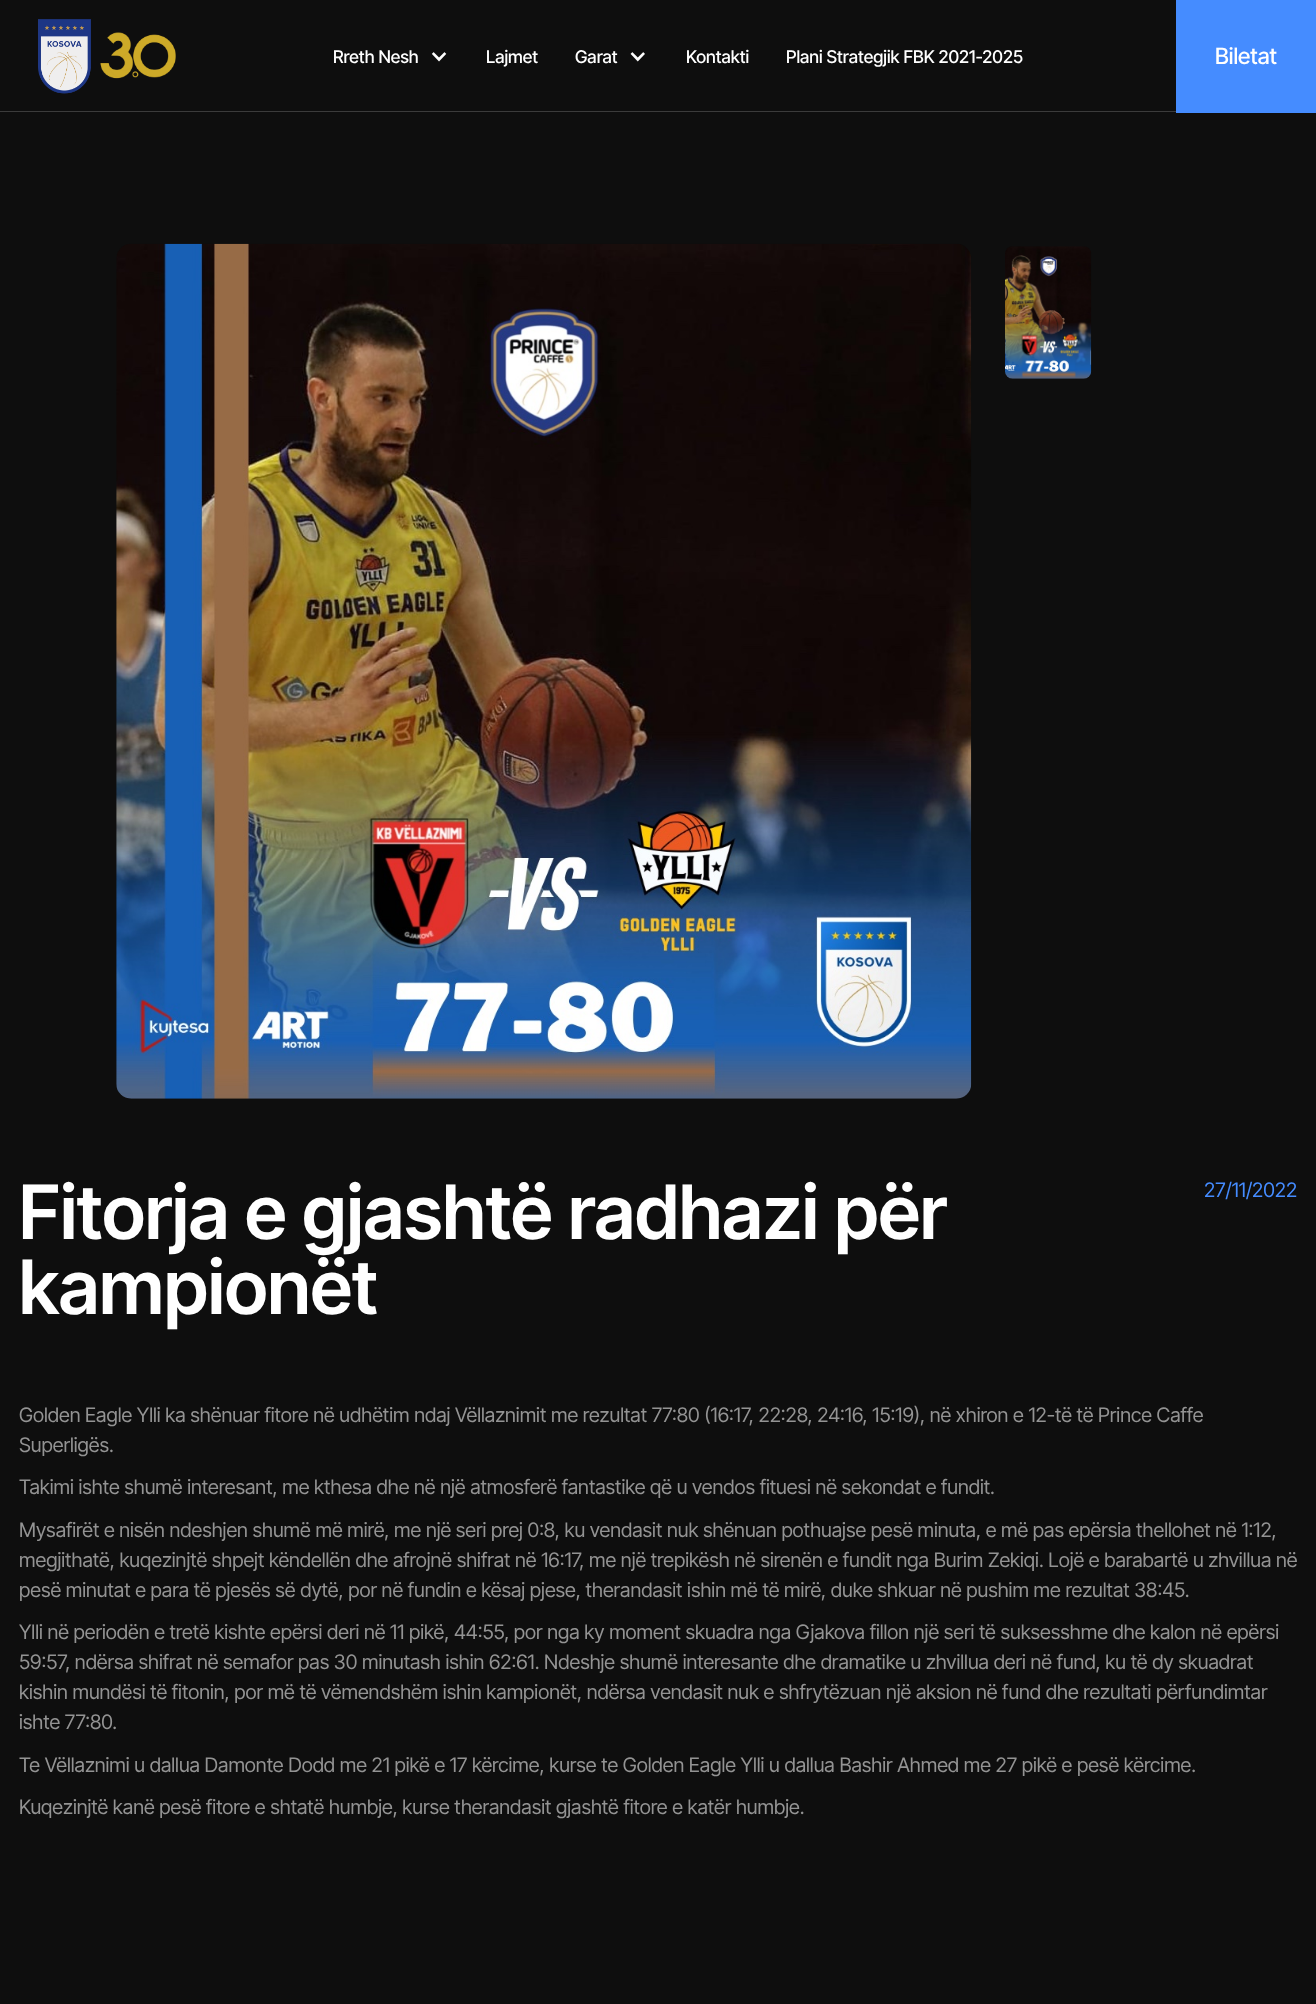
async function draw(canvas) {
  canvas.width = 1316;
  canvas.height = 2004;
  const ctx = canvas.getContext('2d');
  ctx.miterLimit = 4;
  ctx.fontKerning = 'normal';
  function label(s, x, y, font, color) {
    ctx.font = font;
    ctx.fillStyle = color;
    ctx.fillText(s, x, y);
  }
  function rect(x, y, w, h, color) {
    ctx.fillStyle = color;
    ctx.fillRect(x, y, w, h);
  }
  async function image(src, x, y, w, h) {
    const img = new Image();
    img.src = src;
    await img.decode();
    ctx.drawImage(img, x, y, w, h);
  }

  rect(0, 0, 1316, 2004, '#0e0e0e');
  rect(0, 111, 1176, 1, '#3b3b3b');
  await image('assets/img1.png', 38, 19, 53, 75);
  await image('assets/img2.png', 100, 32, 76, 47);
  label('Rreth Nesh', 333, 63, '500 17.5px Inter Tight', '#fff');
  await image('assets/img3.png', 431, 52, 16, 10);
  label('Lajmet', 486, 63, '500 17.5px Inter Tight', '#fff');
  label('Garat', 575, 63, '500 17.5px Inter Tight', '#fff');
  await image('assets/img4.png', 630, 52, 15, 10);
  label('Kontakti', 686, 63, '500 17.5px Inter Tight', '#fff');
  label('Plani Strategjik FBK 2021-2025', 786, 63, '500 17.5px Inter Tight', '#fff');
  rect(1176, 0, 140, 113, '#458cff');
  label('Biletat', 1215, 64, '500 22.5px Inter Tight', '#fff');
  await image('assets/img5.png', 116, 243, 856, 856);
  await image('assets/img6.png', 1005, 246, 87, 133);
  label('Fitorja e gjashtë radhazi për', 19, 1239, '600 75px Inter Tight', '#fff');
  label('kampionët', 19, 1314, '600 75px Inter Tight', '#fff');
  label('27/11/2022', 1204, 1197, '20px Inter Tight', '#458cff');
  label('Golden Eagle Ylli ka shënuar fitore në udhëtim ndaj Vëllaznimit me rezultat 77:80 (16:17, 22:28, 24:16, 15:19), në xhiron e 12-të të Prince Caffe', 19, 1422, '20px Inter Tight', '#939393');
  label('Superligës.', 19, 1452, '20px Inter Tight', '#939393');
  label('Takimi ishte shumë interesant, me kthesa dhe në një atmosferë fantastike që u vendos fituesi në sekondat e fundit.', 19, 1494, '20px Inter Tight', '#939393');
  label('Mysafirët e nisën ndeshjen shumë më mirë, me një seri prej 0:8, ku vendasit nuk shënuan pothuajse pesë minuta, e më pas epërsia thellohet në 1:12,', 19, 1537, '20px Inter Tight', '#939393');
  label('megjithatë, kuqezinjtë shpejt këndellën dhe afrojnë shifrat në 16:17, me një trepikësh në sirenën e fundit nga Burim Zekiqi. Lojë e barabartë u zhvillua në', 19, 1567, '20px Inter Tight', '#939393');
  label('pesë minutat e para të pjesës së dytë, por në fundin e kësaj pjese, therandasit ishin më të mirë, duke shkuar në pushim me rezultat 38:45.', 19, 1597, '20px Inter Tight', '#939393');
  label('Ylli në periodën e tretë kishte epërsi deri në 11 pikë, 44:55, por nga ky moment skuadra nga Gjakova fillon një seri të suksesshme dhe kalon në epërsi', 19, 1639, '20px Inter Tight', '#939393');
  label('59:57, ndërsa shifrat në semafor pas 30 minutash ishin 62:61. Ndeshje shumë interesante dhe dramatike u zhvillua deri në fund, ku të dy skuadrat', 19, 1669, '20px Inter Tight', '#939393');
  label('kishin mundësi të fitonin, por më të vëmendshëm ishin kampionët, ndërsa vendasit nuk e shfrytëzuan një aksion në fund dhe rezultati përfundimtar', 19, 1699, '20px Inter Tight', '#939393');
  label('ishte 77:80.', 19, 1729, '20px Inter Tight', '#939393');
  label('Te Vëllaznimi u dallua Damonte Dodd me 21 pikë e 17 kërcime, kurse te Golden Eagle Ylli u dallua Bashir Ahmed me 27 pikë e pesë kërcime.', 19, 1772, '20px Inter Tight', '#939393');
  label('Kuqezinjtë kanë pesë fitore e shtatë humbje, kurse therandasit gjashtë fitore e katër humbje.', 19, 1814, '20px Inter Tight', '#939393');
}

draw(document.querySelector('canvas'));
